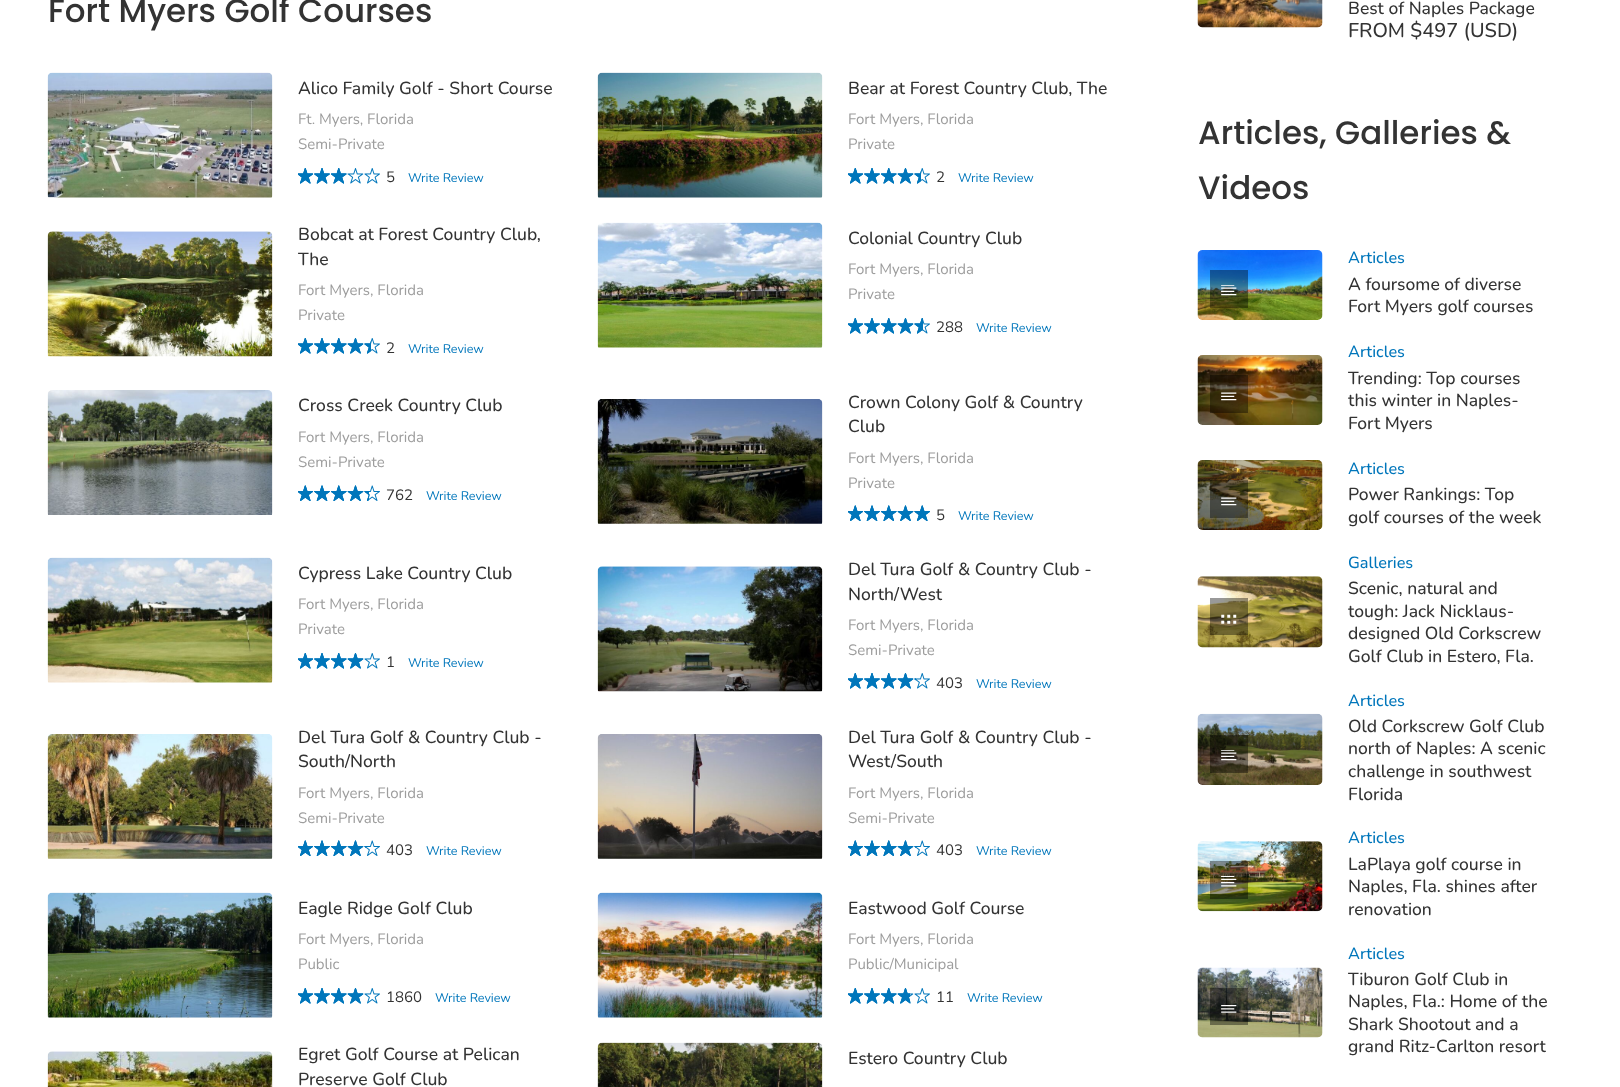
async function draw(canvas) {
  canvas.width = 1620;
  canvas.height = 1087;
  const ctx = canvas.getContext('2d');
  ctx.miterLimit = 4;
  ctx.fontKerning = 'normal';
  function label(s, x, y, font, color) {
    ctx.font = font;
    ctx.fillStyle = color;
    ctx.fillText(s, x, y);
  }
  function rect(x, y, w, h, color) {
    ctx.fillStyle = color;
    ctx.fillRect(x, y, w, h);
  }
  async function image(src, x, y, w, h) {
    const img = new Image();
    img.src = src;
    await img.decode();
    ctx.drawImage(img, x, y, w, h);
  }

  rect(0, 0, 1620, 1087, '#fff');
  label('Fort Myers Golf Courses', 48, 22, '500 32.5px Poppins', '#333');
  await image('assets/img1.png', 47, 72, 226, 126);
  label('Alico Family Golf - Short Course', 298, 94, '500 17.5px Nunito', '#333');
  label('Ft. Myers, Florida', 298, 124, '15px Nunito', '#9d9d9d');
  label('Semi-Private', 298, 149, '15px Nunito', '#9d9d9d');
  await image('assets/img2.png', 298, 168, 82, 16);
  await image('assets/img3.png', 298, 168, 50, 16);
  label('5', 386, 182, '15px Nunito', '#333');
  label('Write Review', 408, 182, '12.5px Nunito', '#0076bb');
  await image('assets/img4.png', 597, 72, 226, 126);
  label('Bear at Forest Country Club, The', 848, 94, '500 17.5px Nunito', '#333');
  label('Fort Myers, Florida', 848, 124, '15px Nunito', '#9d9d9d');
  label('Private', 848, 149, '15px Nunito', '#9d9d9d');
  await image('assets/img2.png', 848, 168, 82, 16);
  await image('assets/img5.png', 848, 168, 73, 16);
  label('2', 936, 182, '15px Nunito', '#333');
  label('Write Review', 958, 182, '12.5px Nunito', '#0076bb');
  await image('assets/img6.png', 47, 231, 226, 126);
  label('Bobcat at Forest Country Club,', 298, 240, '500 17.5px Nunito', '#333');
  label('The', 298, 265, '500 17.5px Nunito', '#333');
  label('Fort Myers, Florida', 298, 295, '15px Nunito', '#9d9d9d');
  label('Private', 298, 320, '15px Nunito', '#9d9d9d');
  await image('assets/img2.png', 298, 338, 82, 16);
  await image('assets/img5.png', 298, 338, 73, 16);
  label('2', 386, 353, '15px Nunito', '#333');
  label('Write Review', 408, 353, '12.5px Nunito', '#0076bb');
  await image('assets/img7.png', 597, 222, 226, 126);
  label('Colonial Country Club', 848, 244, '500 17.5px Nunito', '#333');
  label('Fort Myers, Florida', 848, 274, '15px Nunito', '#9d9d9d');
  label('Private', 848, 299, '15px Nunito', '#9d9d9d');
  await image('assets/img2.png', 848, 318, 82, 16);
  await image('assets/img8.png', 848, 318, 75, 16);
  label('288', 936, 332, '15px Nunito', '#333');
  label('Write Review', 976, 332, '12.5px Nunito', '#0076bb');
  await image('assets/img9.png', 47, 390, 226, 125);
  label('Cross Creek Country Club', 298, 411, '500 17.5px Nunito', '#333');
  label('Fort Myers, Florida', 298, 442, '15px Nunito', '#9d9d9d');
  label('Semi-Private', 298, 467, '15px Nunito', '#9d9d9d');
  await image('assets/img10.png', 298, 485, 82, 16);
  await image('assets/img11.png', 298, 485, 71, 16);
  label('762', 386, 500, '15px Nunito', '#333');
  label('Write Review', 426, 500, '12.5px Nunito', '#0076bb');
  await image('assets/img12.png', 597, 399, 226, 125);
  label('Crown Colony Golf & Country', 848, 408, '500 17.5px Nunito', '#333');
  label('Club', 848, 432, '500 17.5px Nunito', '#333');
  label('Fort Myers, Florida', 848, 463, '15px Nunito', '#9d9d9d');
  label('Private', 848, 488, '15px Nunito', '#9d9d9d');
  await image('assets/img10.png', 848, 505, 82, 16);
  await image('assets/img13.png', 848, 505, 82, 16);
  label('5', 936, 520, '15px Nunito', '#333');
  label('Write Review', 958, 520, '12.5px Nunito', '#0076bb');
  await image('assets/img14.png', 47, 557, 226, 126);
  label('Cypress Lake Country Club', 298, 579, '500 17.5px Nunito', '#333');
  label('Fort Myers, Florida', 298, 609, '15px Nunito', '#9d9d9d');
  label('Private', 298, 634, '15px Nunito', '#9d9d9d');
  await image('assets/img2.png', 298, 653, 82, 16);
  await image('assets/img15.png', 298, 653, 66, 16);
  label('1', 386, 667, '15px Nunito', '#333');
  label('Write Review', 408, 667, '12.5px Nunito', '#0076bb');
  await image('assets/img16.png', 597, 566, 226, 126);
  label('Del Tura Golf & Country Club -', 848, 575, '500 17.5px Nunito', '#333');
  label('North/West', 848, 600, '500 17.5px Nunito', '#333');
  label('Fort Myers, Florida', 848, 630, '15px Nunito', '#9d9d9d');
  label('Semi-Private', 848, 655, '15px Nunito', '#9d9d9d');
  await image('assets/img2.png', 848, 673, 82, 16);
  await image('assets/img17.png', 848, 673, 68, 16);
  label('403', 936, 688, '15px Nunito', '#333');
  label('Write Review', 976, 688, '12.5px Nunito', '#0076bb');
  await image('assets/img18.png', 47, 734, 226, 125);
  label('Del Tura Golf & Country Club -', 298, 743, '500 17.5px Nunito', '#333');
  label('South/North', 298, 767, '500 17.5px Nunito', '#333');
  label('Fort Myers, Florida', 298, 798, '15px Nunito', '#9d9d9d');
  label('Semi-Private', 298, 823, '15px Nunito', '#9d9d9d');
  await image('assets/img10.png', 298, 840, 82, 16);
  await image('assets/img19.png', 298, 840, 68, 16);
  label('403', 386, 855, '15px Nunito', '#333');
  label('Write Review', 426, 855, '12.5px Nunito', '#0076bb');
  await image('assets/img20.png', 597, 734, 226, 125);
  label('Del Tura Golf & Country Club -', 848, 743, '500 17.5px Nunito', '#333');
  label('West/South', 848, 767, '500 17.5px Nunito', '#333');
  label('Fort Myers, Florida', 848, 798, '15px Nunito', '#9d9d9d');
  label('Semi-Private', 848, 823, '15px Nunito', '#9d9d9d');
  await image('assets/img10.png', 848, 840, 82, 16);
  await image('assets/img19.png', 848, 840, 68, 16);
  label('403', 936, 855, '15px Nunito', '#333');
  label('Write Review', 976, 855, '12.5px Nunito', '#0076bb');
  await image('assets/img21.png', 47, 892, 226, 126);
  label('Eagle Ridge Golf Club', 298, 914, '500 17.5px Nunito', '#333');
  label('Fort Myers, Florida', 298, 944, '15px Nunito', '#9d9d9d');
  label('Public', 298, 969, '15px Nunito', '#9d9d9d');
  await image('assets/img2.png', 298, 988, 82, 16);
  await image('assets/img15.png', 298, 988, 66, 16);
  label('1860', 386, 1002, '15px Nunito', '#333');
  label('Write Review', 435, 1002, '12.5px Nunito', '#0076bb');
  await image('assets/img22.png', 597, 892, 226, 126);
  label('Eastwood Golf Course', 848, 914, '500 17.5px Nunito', '#333');
  label('Fort Myers, Florida', 848, 944, '15px Nunito', '#9d9d9d');
  label('Public/Municipal', 848, 969, '15px Nunito', '#9d9d9d');
  await image('assets/img2.png', 848, 988, 82, 16);
  await image('assets/img23.png', 848, 988, 62, 16);
  label('11', 936, 1002, '15px Nunito', '#333');
  label('Write Review', 967, 1002, '12.5px Nunito', '#0076bb');
  await image('assets/img24.png', 47, 1051, 226, 36);
  label('Egret Golf Course at Pelican', 298, 1060, '500 17.5px Nunito', '#333');
  label('Preserve Golf Club', 298, 1085, '500 17.5px Nunito', '#333');
  await image('assets/img25.png', 597, 1042, 226, 45);
  label('Estero Country Club', 848, 1064, '500 17.5px Nunito', '#333');
  await image('assets/img26.png', 1197, 0, 126, 28);
  label('Best of Naples Package', 1348, 14, '500 17.5px Nunito', '#333');
  label('FROM $497 (USD)', 1348, 37, '500 20px Nunito', '#333');
  label('Articles, Galleries &', 1198, 144, '500 32.5px Poppins', '#333');
  label('Videos', 1198, 199, '500 32.5px Poppins', '#333');
  await image('assets/img27.png', 1197, 250, 126, 70);
  rect(1210, 270, 38, 38, '#00000066');
  await image('assets/img28.png', 1221, 285, 16, 11);
  label('Articles', 1348, 263, '500 16.25px Nunito', '#0076bb');
  label('A foursome of diverse', 1348, 290, '500 17.5px Nunito', '#333');
  label('Fort Myers golf courses', 1348, 312, '500 17.5px Nunito', '#333');
  await image('assets/img29.png', 1197, 355, 126, 70);
  rect(1210, 375, 38, 38, '#00000066');
  await image('assets/img30.png', 1221, 392, 16, 9);
  label('Articles', 1348, 357, '500 16.25px Nunito', '#0076bb');
  label('Trending: Top courses', 1348, 384, '500 17.5px Nunito', '#333');
  label('this winter in Naples-', 1348, 406, '500 17.5px Nunito', '#333');
  label('Fort Myers', 1348, 429, '500 17.5px Nunito', '#333');
  await image('assets/img31.png', 1197, 460, 126, 70);
  rect(1210, 480, 38, 38, '#00000066');
  await image('assets/img32.png', 1221, 497, 16, 9);
  label('Articles', 1348, 474, '500 16.25px Nunito', '#0076bb');
  label('Power Rankings: Top', 1348, 500, '500 17.5px Nunito', '#333');
  label('golf courses of the week', 1348, 523, '500 17.5px Nunito', '#333');
  await image('assets/img33.png', 1197, 576, 126, 72);
  rect(1210, 598, 38, 37, '#00000066');
  await image('assets/img34.png', 1221, 614, 16, 10);
  label('Galleries', 1348, 568, '500 16.25px Nunito', '#0076bb');
  label('Scenic, natural and', 1348, 594, '500 17.5px Nunito', '#333');
  label('tough: Jack Nicklaus-', 1348, 617, '500 17.5px Nunito', '#333');
  label('designed Old Corkscrew', 1348, 639, '500 17.5px Nunito', '#333');
  label('Golf Club in Estero, Fla.', 1348, 662, '500 17.5px Nunito', '#333');
  await image('assets/img35.png', 1197, 713, 126, 72);
  rect(1210, 735, 38, 38, '#00000066');
  await image('assets/img36.png', 1221, 750, 16, 11);
  label('Articles', 1348, 706, '500 16.25px Nunito', '#0076bb');
  label('Old Corkscrew Golf Club', 1348, 732, '500 17.5px Nunito', '#333');
  label('north of Naples: A scenic', 1348, 754, '500 17.5px Nunito', '#333');
  label('challenge in southwest', 1348, 777, '500 17.5px Nunito', '#333');
  label('Florida', 1348, 800, '500 17.5px Nunito', '#333');
  await image('assets/img37.png', 1197, 841, 126, 71);
  rect(1210, 861, 38, 38, '#00000066');
  await image('assets/img38.png', 1221, 876, 16, 11);
  label('Articles', 1348, 843, '500 16.25px Nunito', '#0076bb');
  label('LaPlaya golf course in', 1348, 870, '500 17.5px Nunito', '#333');
  label('Naples, Fla. shines after', 1348, 892, '500 17.5px Nunito', '#333');
  label('renovation', 1348, 915, '500 17.5px Nunito', '#333');
  await image('assets/img39.png', 1197, 967, 126, 71);
  rect(1210, 988, 38, 37, '#00000066');
  await image('assets/img40.png', 1221, 1005, 16, 8);
  label('Articles', 1348, 959, '500 16.25px Nunito', '#0076bb');
  label('Tiburon Golf Club in', 1348, 985, '500 17.5px Nunito', '#333');
  label('Naples, Fla.: Home of the', 1348, 1007, '500 17.5px Nunito', '#333');
  label('Shark Shootout and a', 1348, 1030, '500 17.5px Nunito', '#333');
  label('grand Ritz-Carlton resort', 1348, 1052, '500 17.5px Nunito', '#333');
}

draw(document.querySelector('canvas'));
